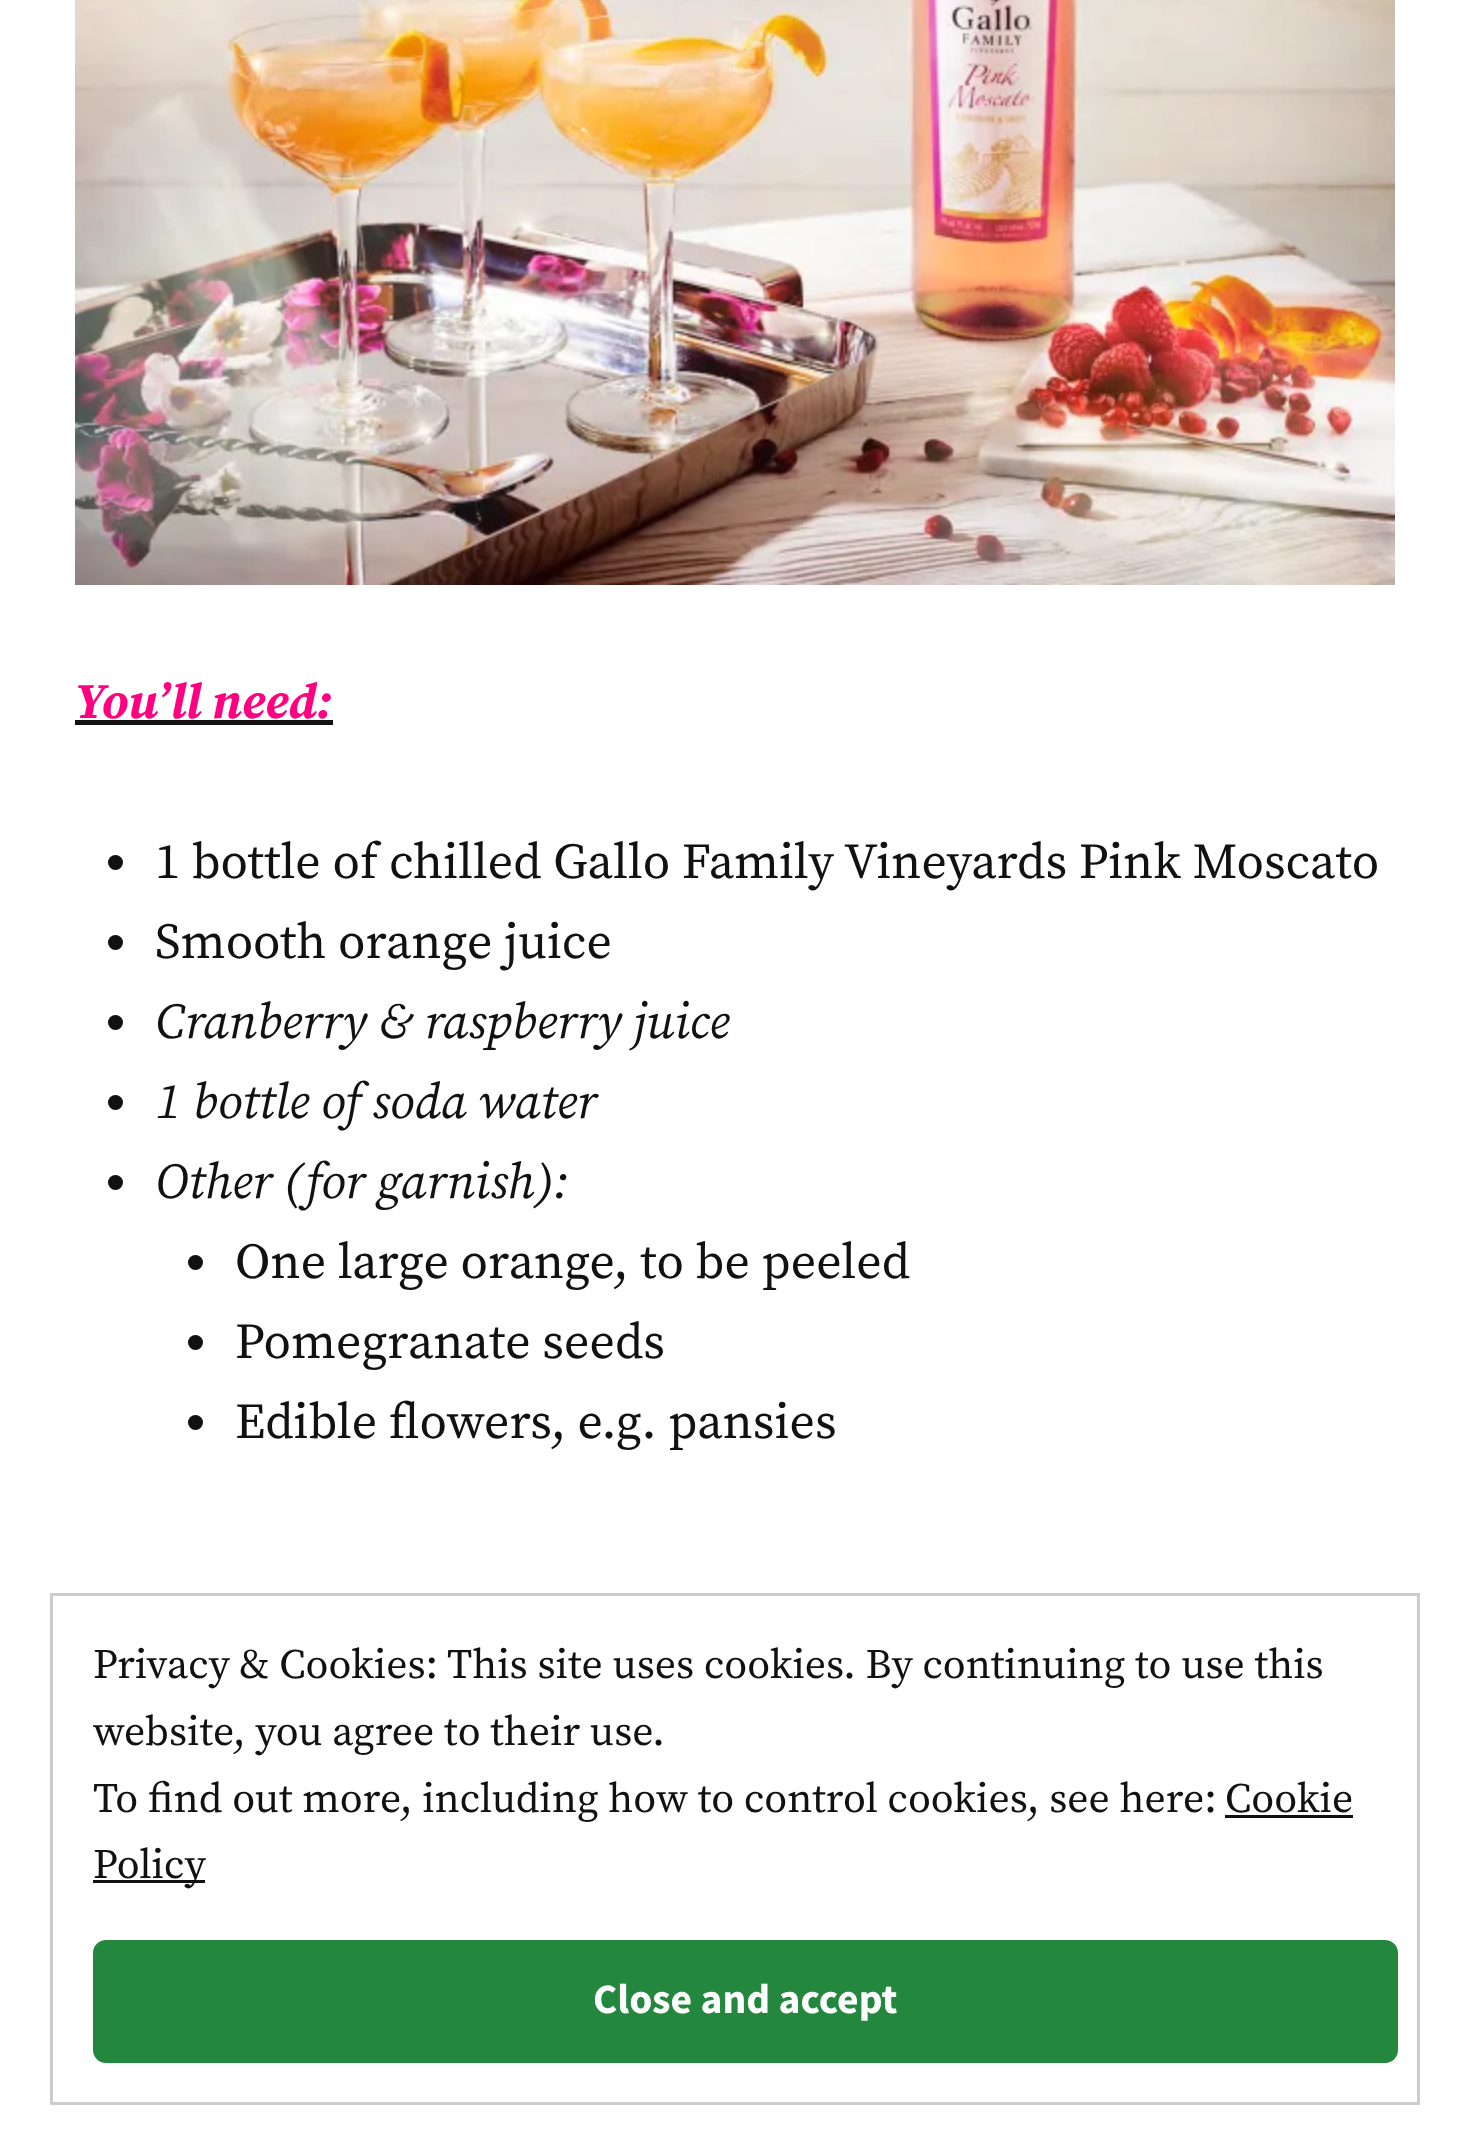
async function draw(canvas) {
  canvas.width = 1469;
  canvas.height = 2154;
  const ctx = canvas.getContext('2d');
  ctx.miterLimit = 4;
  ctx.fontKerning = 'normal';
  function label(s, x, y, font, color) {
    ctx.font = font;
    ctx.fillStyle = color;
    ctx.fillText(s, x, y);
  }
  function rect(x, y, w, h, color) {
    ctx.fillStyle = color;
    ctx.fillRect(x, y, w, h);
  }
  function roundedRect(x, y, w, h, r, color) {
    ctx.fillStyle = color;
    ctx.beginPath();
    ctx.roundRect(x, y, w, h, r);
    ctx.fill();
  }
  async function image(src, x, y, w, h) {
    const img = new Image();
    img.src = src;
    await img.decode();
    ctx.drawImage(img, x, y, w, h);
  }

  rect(0, 0, 1469, 2154, '#fff');
  await image('assets/img1.png', 75, 0, 1320, 585);
  label('You’ll need:', 75, 718, 'italic bold 50px Source Serif Pro', '#ff0080');
  rect(75, 720, 258, 5, '#111');
  ctx.beginPath();
  ctx.arc(115.5, 862.5, 7.5, 0, 2 * Math.PI);
  ctx.fill();
  label('1 bottle of chilled Gallo Family Vineyards Pink Moscato', 155, 878, '50px Source Serif Pro', '#111');
  ctx.beginPath();
  ctx.arc(115.5, 942.5, 7.5, 0, 2 * Math.PI);
  ctx.fill();
  label('Smooth orange juice', 155, 958, '50px Source Serif Pro', '#111');
  ctx.beginPath();
  ctx.arc(115.5, 1022.5, 7.5, 0, 2 * Math.PI);
  ctx.fill();
  label('Cranberry & raspberry juice', 155, 1038, 'italic 50px Source Serif Pro', '#111');
  ctx.beginPath();
  ctx.arc(115.5, 1102.5, 7.5, 0, 2 * Math.PI);
  ctx.fill();
  label('1 bottle of soda water', 155, 1118, 'italic 50px Source Serif Pro', '#111');
  ctx.beginPath();
  ctx.arc(115.5, 1182.5, 7.5, 0, 2 * Math.PI);
  ctx.fill();
  label('Other (for garnish):', 155, 1198, 'italic 50px Source Serif Pro', '#111');
  ctx.beginPath();
  ctx.arc(195.5, 1262.5, 7.5, 0, 2 * Math.PI);
  ctx.fill();
  label('One large orange, to be peeled', 235, 1278, '50px Source Serif Pro', '#111');
  ctx.beginPath();
  ctx.arc(195.5, 1342.5, 7.5, 0, 2 * Math.PI);
  ctx.fill();
  label('Pomegranate seeds', 235, 1358, '50px Source Serif Pro', '#111');
  ctx.beginPath();
  ctx.arc(195.5, 1422.5, 7.5, 0, 2 * Math.PI);
  ctx.fill();
  label('Edible flowers, e.g. pansies', 235, 1438, '50px Source Serif Pro', '#111');
  ctx.strokeStyle = '#ccc';
  ctx.lineWidth = 3;
  ctx.strokeRect(51.5, 1594.5, 1367, 509);
  label('Privacy & Cookies: This site uses cookies. By continuing to use this', 93, 1678, '41.7px Source Serif Pro', '#111');
  label('website, you agree to their use.', 93, 1745, '41.7px Source Serif Pro', '#111');
  label('To find out more, including how to control cookies, see here:', 93, 1812, '41.7px Source Serif Pro', '#111');
  label('Cookie', 1225, 1812, '41.7px Source Serif Pro', '#111');
  rect(1225, 1815, 128, 3, '#111');
  rect(93, 1880, 112, 3, '#111');
  label('Policy', 93, 1878, '41.7px Source Serif Pro', '#111');
  roundedRect(93, 1940, 1305, 123, 13, '#23883d');
  label('Close and accept', 593, 2013, 'bold 41.7px Source Sans Pro', '#fff');
}

draw(document.querySelector('canvas'));
